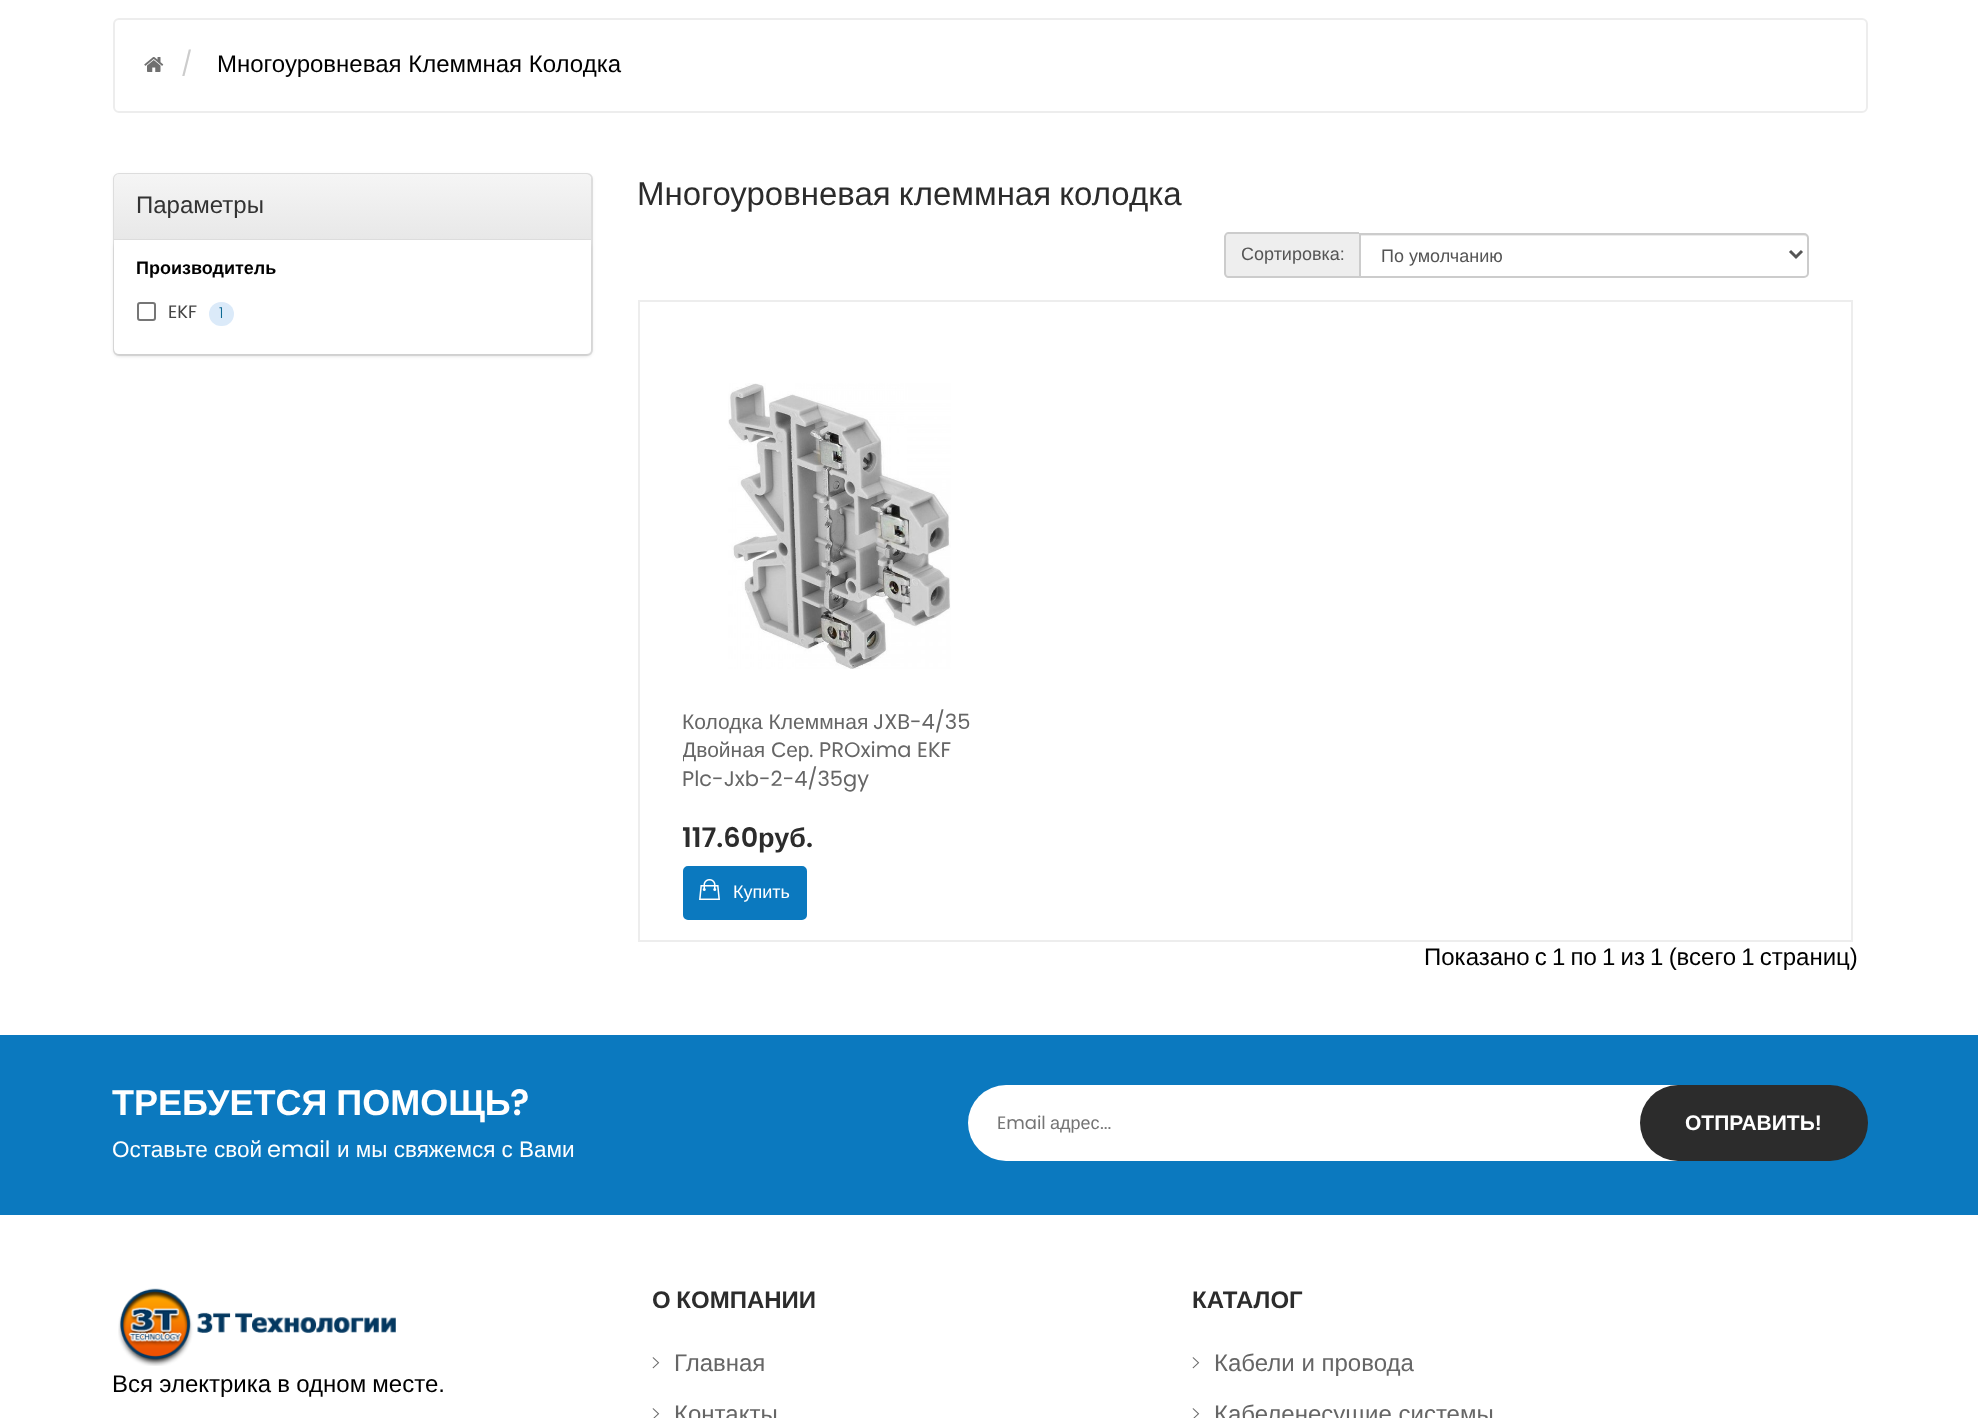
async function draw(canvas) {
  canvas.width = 1978;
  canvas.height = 1418;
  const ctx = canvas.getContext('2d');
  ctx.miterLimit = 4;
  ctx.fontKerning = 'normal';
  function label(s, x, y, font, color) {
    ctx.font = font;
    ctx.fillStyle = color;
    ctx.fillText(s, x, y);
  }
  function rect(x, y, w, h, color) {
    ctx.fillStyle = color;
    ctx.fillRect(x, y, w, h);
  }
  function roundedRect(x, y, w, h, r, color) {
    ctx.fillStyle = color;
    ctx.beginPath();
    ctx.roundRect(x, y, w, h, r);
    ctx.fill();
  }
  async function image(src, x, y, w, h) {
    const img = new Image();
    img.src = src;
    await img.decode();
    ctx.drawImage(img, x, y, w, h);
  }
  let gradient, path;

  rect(0, 0, 1978, 1418, '#fff');
  ctx.beginPath();
  ctx.roundRect(114, 19, 1753, 93, 5);
  ctx.strokeStyle = '#ededed';
  ctx.lineWidth = 2;
  ctx.stroke();
  await image('assets/img1.png', 144, 57, 20, 15);
  label('/', 181, 72, '24px Poppins', '#ccc');
  label('Многоуровневая Клеммная Колодка', 217, 72, '24px Liberation Sans', '#000');
  ctx.fillStyle = '#0000000d';
  ctx.filter = 'blur(1.5px)';
  ctx.beginPath();
  ctx.roundRect(113, 174, 480, 183, 6);
  ctx.fill();
  ctx.filter = 'none';
  ctx.fillStyle = '#fff';
  ctx.beginPath();
  ctx.roundRect(114, 174, 478, 181, 5);
  ctx.fill();
  ctx.strokeStyle = '#ddd';
  ctx.stroke();
  gradient = ctx.createLinearGradient(353, 174, 353, 239);
  gradient.addColorStop(0, '#f5f5f5');
  gradient.addColorStop(1, '#e8e8e8');
  ctx.fillStyle = gradient;
  ctx.beginPath();
  ctx.roundRect(114, 174, 477, 65, [5, 5, 0, 0]);
  ctx.fill();
  rect(114, 239, 477, 1, '#ddd');
  label('Параметры', 136, 213, '24px Liberation Sans', '#333');
  ctx.fillStyle = '#00000012';
  ctx.filter = 'blur(1.5px)';
  ctx.beginPath();
  ctx.roundRect(114, 242, 477, 114, 6);
  ctx.fill();
  ctx.filter = 'none';
  ctx.fillStyle = '#fff';
  ctx.beginPath();
  ctx.roundRect(114, 240, 477, 114, [0, 0, 5, 5]);
  ctx.fill();
  label('Производитель', 136, 274, 'bold 18px Liberation Sans', '#000');
  ctx.beginPath();
  ctx.roundRect(138, 303, 17, 17, 2);
  ctx.strokeStyle = '#767676';
  ctx.stroke();
  label('EKF', 168, 318, '18px Poppins', '#444');
  roundedRect(209, 302, 25, 24, 12, '#dbeaf9');
  label('1', 219, 318, '300 15px Poppins', '#0e6a93');
  ctx.wordSpacing = '-1px';
  label('Многоуровневая клеммная колодка', 637, 205, '33px Liberation Sans', '#2c2c2c');
  ctx.fillStyle = '#eee';
  ctx.beginPath();
  ctx.roundRect(1224, 233, 135, 45, [5, 0, 0, 5]);
  ctx.fill();
  ctx.fillStyle = '#ccc';
  path = new Path2D('M1228 232H1359V278H1228C1226 278 1224 275 1224 273V237C1224 235 1226 232 1228 232ZM1228 234H1359V276H1228C1227 276 1226 275 1226 273V237C1226 235 1227 234 1228 234Z');
  ctx.fill(path, 'evenodd');
  ctx.wordSpacing = '0px';
  label('Сортировка:', 1241, 260, '18px Liberation Sans', '#555');
  ctx.fillStyle = '#ececec';
  path = new Path2D('M1361 234V236H1804C1806 236 1808 237 1808 238C1808 236 1807 234 1805 234Z');
  ctx.fill(path);
  ctx.beginPath();
  ctx.roundRect(1360, 234, 448, 43, [0, 4, 4, 0]);
  ctx.strokeStyle = '#ccc';
  ctx.stroke();
  path = new Path2D('M1790 251L1796 257L1802 251');
  ctx.strokeStyle = '#555';
  ctx.lineWidth = 3;
  ctx.stroke(path);
  label('По умолчанию', 1381, 262, '18px Liberation Sans', '#555');
  ctx.strokeStyle = '#ededed';
  ctx.lineWidth = 2;
  ctx.strokeRect(639, 301, 1213, 640);
  await image('assets/img2.png', 728, 383, 223, 286);
  label('Колодка Клеммная', 682, 729, '21px Liberation Sans', '#666');
  label('JXB-4/35', 873, 729, '21px Poppins', '#666');
  ctx.save();
  ctx.beginPath();
  ctx.rect(683, 708, 313, 86);
  ctx.clip();
  label('Двойная', 682, 757, '21px Liberation Sans', '#666');
  ctx.restore();
  label('Сер', 771, 757, '21px Liberation Sans', '#666');
  label('. PROxima EKF', 809, 757, '21px Poppins', '#666');
  label('Plc-Jxb-2-4/35gy', 682, 786, '21px Poppins', '#666');
  label('117.60', 682, 847, '600 27px Poppins', '#2c2c2c');
  label('руб', 758, 847, 'bold 27px Liberation Sans', '#2c2c2c');
  label('.', 806, 847, '600 27px Poppins', '#2c2c2c');
  ctx.fillStyle = '#0b79bf';
  ctx.beginPath();
  ctx.roundRect(684, 867, 122, 52, 4);
  ctx.fill();
  ctx.strokeStyle = '#0b79bf';
  ctx.stroke();
  await image('assets/img3.png', 699, 879, 21, 21);
  label('Купить', 733, 898, '18px Liberation Sans', '#fff');
  ctx.wordSpacing = '-1.5px';
  label('Показано с 1 по 1 из 1 (всего 1 страниц)', 1424, 965, '24px Liberation Sans', '#000');
  rect(0, 1035, 1978, 180, '#0b79bf');
  ctx.wordSpacing = '-1px';
  label('ТРЕБУЕТСЯ ПОМОЩЬ', 112, 1115, 'bold 36px Liberation Sans', '#fff');
  ctx.wordSpacing = '0px';
  label('?', 510, 1115, '600 36px Poppins', '#fff');
  label('Оставьте свой', 112, 1157, '22.5px Liberation Sans', '#fff');
  label('email', 267, 1157, '22.5px Poppins', '#fff');
  label('и мы свяжемся с Вами', 337, 1157, '22.5px Liberation Sans', '#fff');
  roundedRect(968, 1085, 840, 76, 38, '#fff');
  label('Email', 997, 1129, '18px Poppins', '#757575');
  label('адрес', 1050, 1129, '18px Liberation Sans', '#757575');
  label('...', 1100, 1129, '18px Poppins', '#757575');
  roundedRect(1640, 1085, 228, 76, 38, '#2c2c2c');
  label('ОТПРАВИТЬ!', 1685, 1130, 'bold 21px Liberation Sans', '#fff');
  await image('assets/img4.png', 118, 1288, 278, 78);
  ctx.wordSpacing = '-0.5px';
  label('Вся электрика в одном месте.', 112, 1392, '24px Liberation Sans', '#000');
  ctx.wordSpacing = '-1px';
  label('О КОМПАНИИ', 652, 1308, 'bold 24px Liberation Sans', '#2c2c2c');
  await image('assets/img5.png', 652, 1357, 8, 12);
  ctx.wordSpacing = '0px';
  label('Главная', 674, 1371, '24px Liberation Sans', '#666');
  await image('assets/img6.png', 652, 1408, 8, 10);
  label('Контакты', 674, 1422, '24px Liberation Sans', '#666');
  label('КАТАЛОГ', 1192, 1308, 'bold 24px Liberation Sans', '#2c2c2c');
  await image('assets/img5.png', 1192, 1357, 8, 12);
  label('Кабели и провода', 1214, 1371, '24px Liberation Sans', '#666');
  await image('assets/img6.png', 1192, 1408, 8, 10);
  label('Кабеленесущие системы', 1214, 1422, '24px Liberation Sans', '#666');
}

draw(document.querySelector('canvas'));
